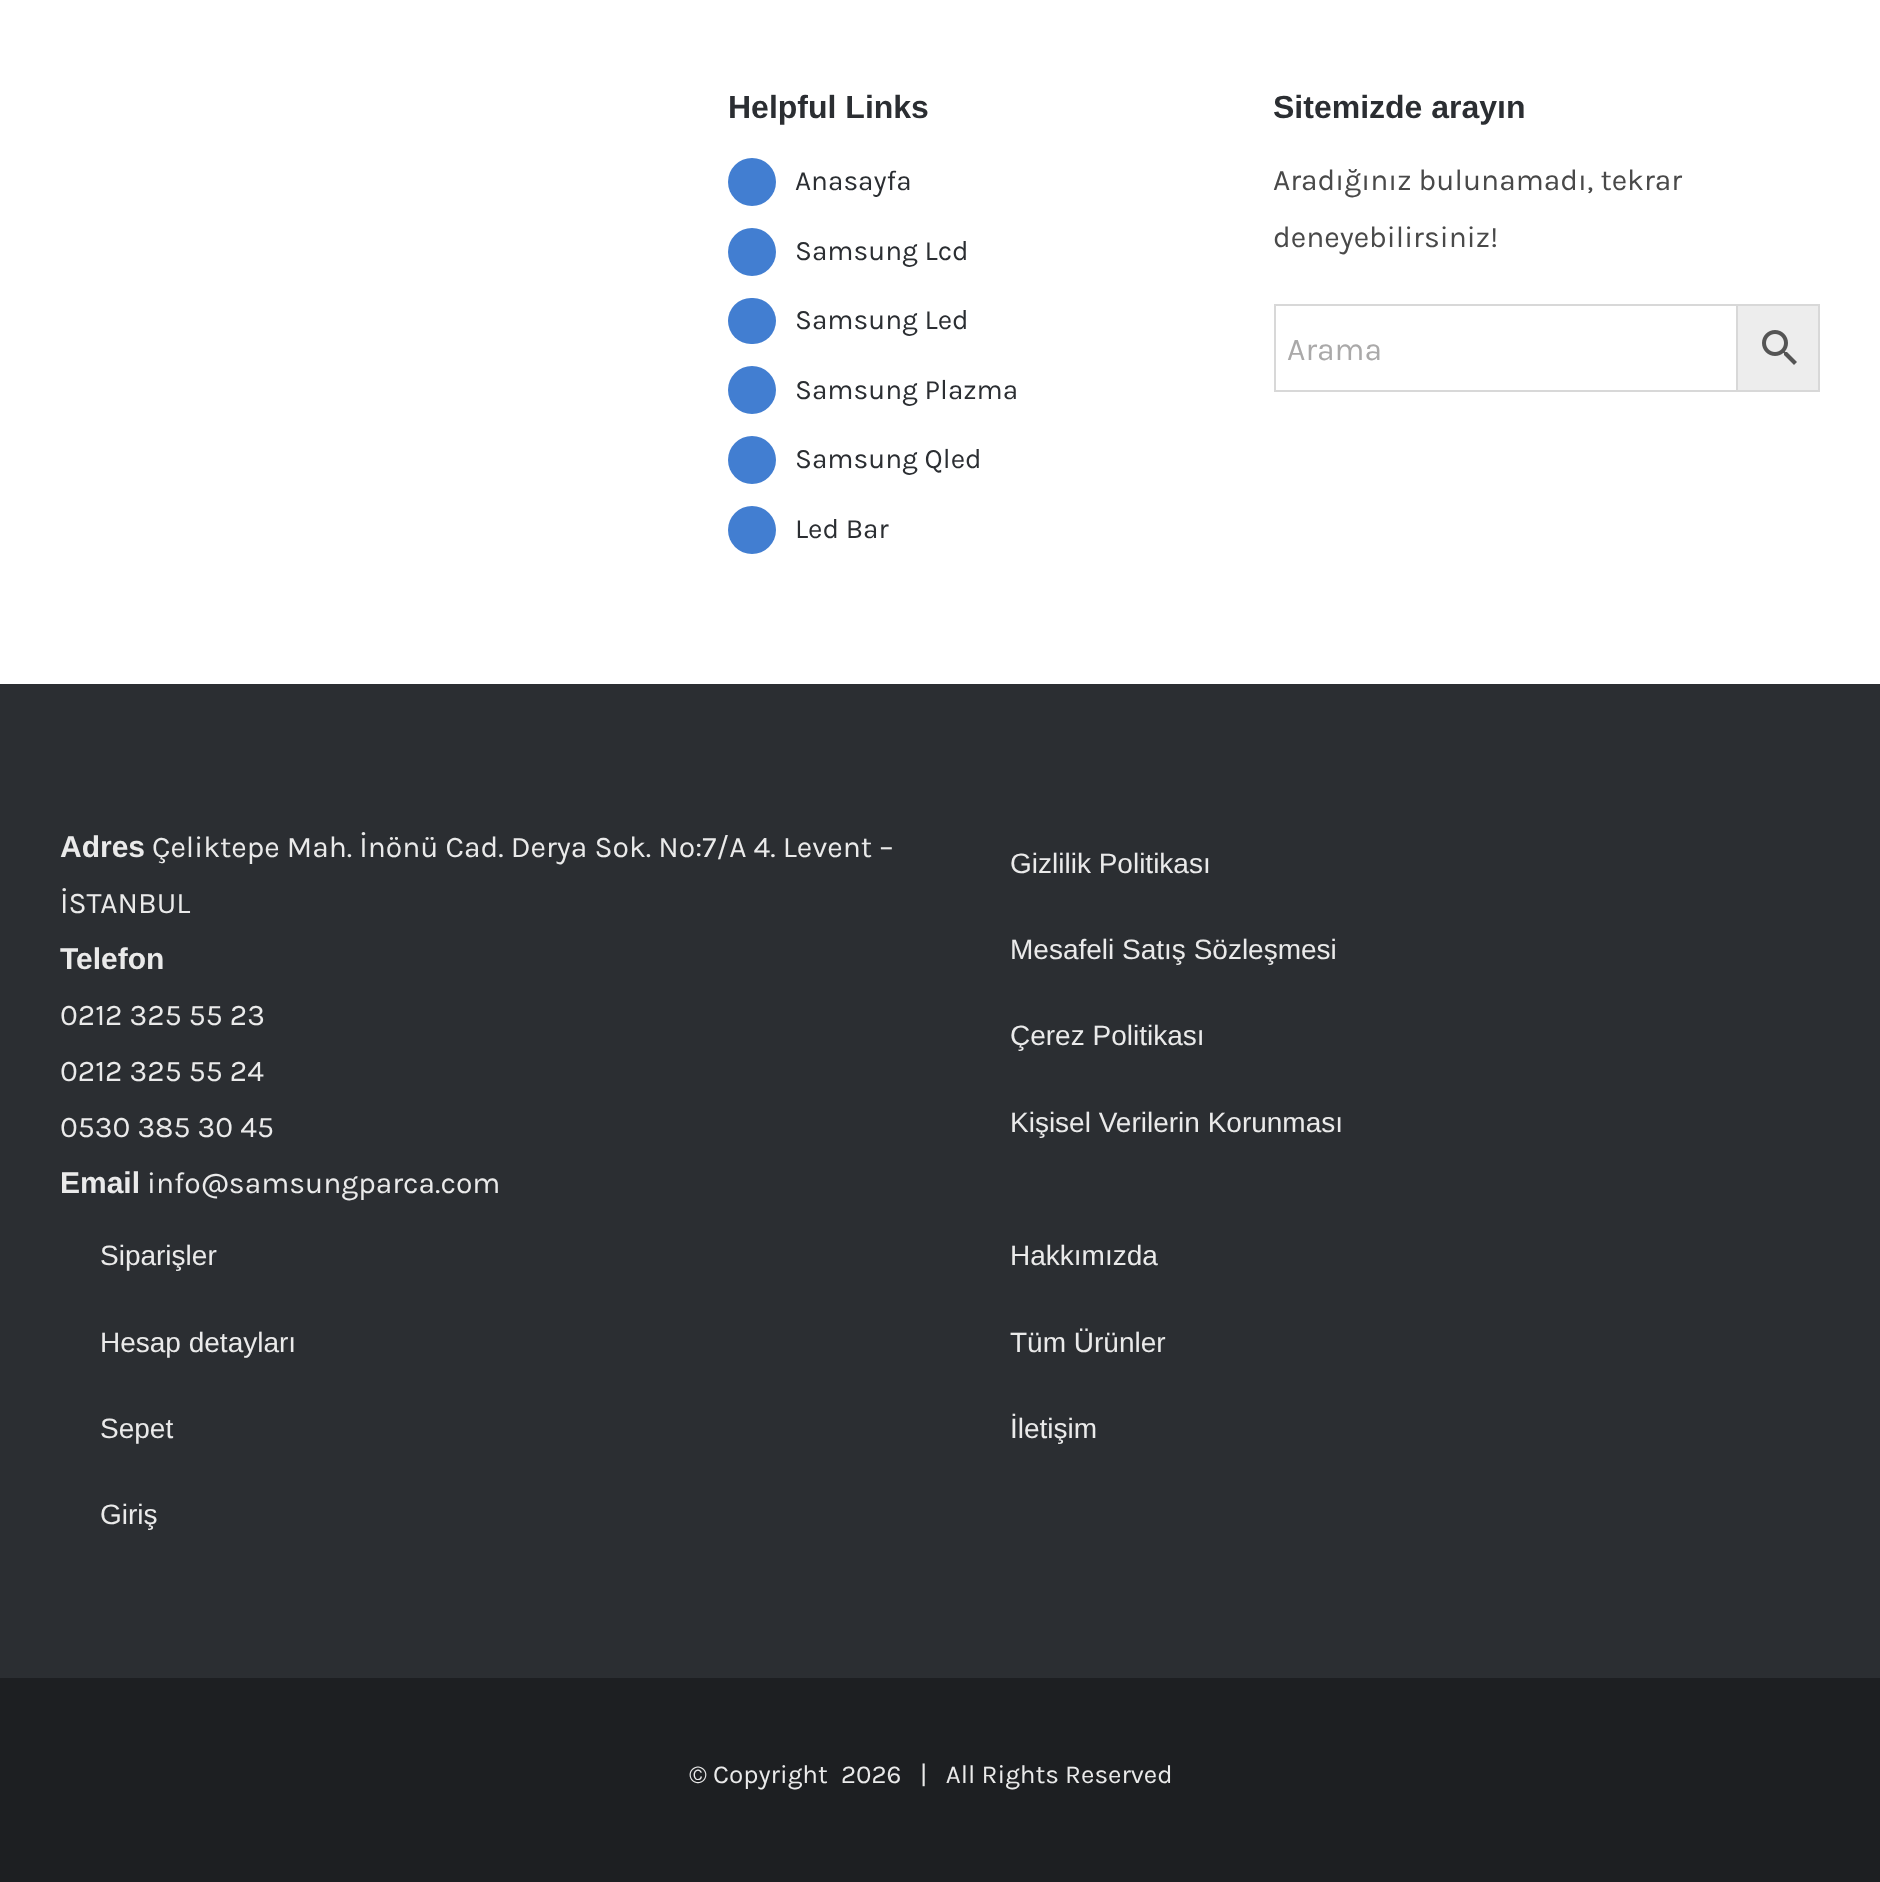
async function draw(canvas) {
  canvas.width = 1880;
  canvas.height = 1882;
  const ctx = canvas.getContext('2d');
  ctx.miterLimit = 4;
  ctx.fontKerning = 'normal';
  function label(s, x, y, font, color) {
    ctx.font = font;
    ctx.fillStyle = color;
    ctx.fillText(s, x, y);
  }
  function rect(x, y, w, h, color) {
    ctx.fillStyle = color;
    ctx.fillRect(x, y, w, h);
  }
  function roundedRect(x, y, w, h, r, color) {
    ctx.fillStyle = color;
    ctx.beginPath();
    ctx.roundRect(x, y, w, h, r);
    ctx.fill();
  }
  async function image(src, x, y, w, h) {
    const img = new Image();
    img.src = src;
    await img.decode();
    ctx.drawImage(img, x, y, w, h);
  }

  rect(0, 0, 1880, 1882, '#fff');
  label('Helpful Links', 728, 118, 'bold 32px Liberation Sans', '#2b2e32');
  ctx.fillStyle = '#427ed1';
  ctx.beginPath();
  ctx.arc(752, 182, 24, 0, 2 * Math.PI);
  ctx.fill();
  label('Anasayfa', 795, 190, '28px Karla', '#2b2e32');
  ctx.fillStyle = '#427ed1';
  ctx.beginPath();
  ctx.arc(752, 252, 24, 0, 2 * Math.PI);
  ctx.fill();
  label('Samsung Lcd', 795, 260, '28px Karla', '#2b2e32');
  roundedRect(728, 298, 48, 46, 23, '#427ed1');
  label('Samsung Led', 795, 329, '28px Karla', '#2b2e32');
  ctx.fillStyle = '#427ed1';
  ctx.beginPath();
  ctx.arc(752, 390, 24, 0, 2 * Math.PI);
  ctx.fill();
  label('Samsung Plazma', 795, 399, '28px Karla', '#2b2e32');
  ctx.fillStyle = '#427ed1';
  ctx.beginPath();
  ctx.arc(752, 460, 24, 0, 2 * Math.PI);
  ctx.fill();
  label('Samsung Qled', 795, 468, '28px Karla', '#2b2e32');
  ctx.fillStyle = '#427ed1';
  ctx.beginPath();
  ctx.arc(752, 530, 24, 0, 2 * Math.PI);
  ctx.fill();
  label('Led Bar', 795, 538, '28px Karla', '#2b2e32');
  label('Sitemizde arayın', 1273, 118, 'bold 32px Liberation Sans', '#2b2e32');
  label('Aradığınız bulunamadı, tekrar', 1273, 190, '30px Karla', '#494949');
  label('deneyebilirsiniz!', 1273, 247, '30px Karla', '#494949');
  ctx.fillStyle = '#ededed';
  ctx.beginPath();
  ctx.rect(1737, 305, 82, 86);
  ctx.fill();
  ctx.strokeStyle = '#d8d8d8';
  ctx.lineWidth = 2;
  ctx.stroke();
  ctx.strokeRect(1275, 305, 462, 86);
  label('Arama', 1287, 360, '32px Karla', '#aaa9a9');
  await image('assets/img1.png', 1762, 330, 35, 35);
  rect(0, 684, 1880, 994, '#2b2e32');
  label('Adres', 60, 857, 'bold 30px Liberation Sans', '#eaeaea');
  label('Çeliktepe Mah. İnönü Cad. Derya Sok. No:7/A 4. Levent –', 152, 857, '30px Karla', '#eaeaea');
  label('İSTANBUL', 60, 913, '30px Karla', '#eaeaea');
  label('Telefon', 60, 969, 'bold 30px Liberation Sans', '#eaeaea');
  label('0212 325 55 23', 60, 1025, '30px Karla', '#eaeaea');
  label('0212 325 55 24', 60, 1081, '30px Karla', '#eaeaea');
  label('0530 385 30 45', 60, 1137, '30px Karla', '#eaeaea');
  label('Email', 60, 1193, 'bold 30px Liberation Sans', '#eaeaea');
  label('info@samsungparca.com', 147, 1193, '30px Karla', '#eaeaea');
  label('Gizlilik Politikası', 1010, 873, '28px Liberation Sans', '#eaeaea');
  label('Mesafeli Satış Sözleşmesi', 1010, 959, '28px Liberation Sans', '#eaeaea');
  label('Çerez Politikası', 1010, 1045, '28px Liberation Sans', '#eaeaea');
  label('Kişisel Verilerin Korunması', 1010, 1132, '28px Liberation Sans', '#eaeaea');
  label('Siparişler', 100, 1265, '28px Liberation Sans', '#eaeaea');
  label('Hesap detayları', 100, 1352, '28px Liberation Sans', '#eaeaea');
  label('Sepet', 100, 1438, '28px Liberation Sans', '#eaeaea');
  label('Giriş', 100, 1524, '28px Liberation Sans', '#eaeaea');
  label('Hakkımızda', 1010, 1265, '28px Liberation Sans', '#eaeaea');
  label('Tüm Ürünler', 1010, 1352, '28px Liberation Sans', '#eaeaea');
  label('İletişim', 1010, 1438, '28px Liberation Sans', '#eaeaea');
  rect(0, 1678, 1880, 204, '#1d1f22');
  label('© Copyright', 689, 1783, '26px Karla', '#eaeaea');
  label('2026   |   All Rights Reserved', 841, 1783, '26px Karla', '#eaeaea');
}

draw(document.querySelector('canvas'));
